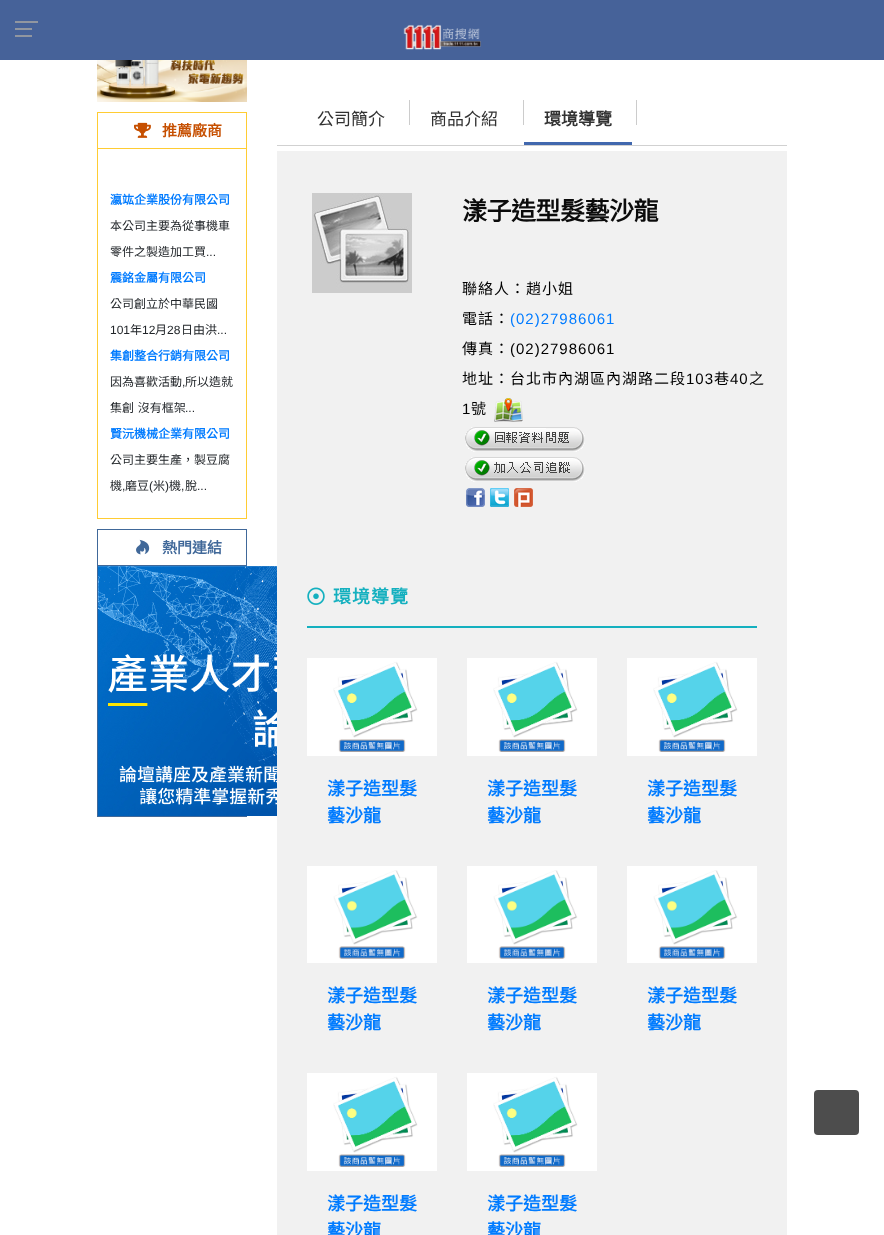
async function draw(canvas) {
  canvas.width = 884;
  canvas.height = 1235;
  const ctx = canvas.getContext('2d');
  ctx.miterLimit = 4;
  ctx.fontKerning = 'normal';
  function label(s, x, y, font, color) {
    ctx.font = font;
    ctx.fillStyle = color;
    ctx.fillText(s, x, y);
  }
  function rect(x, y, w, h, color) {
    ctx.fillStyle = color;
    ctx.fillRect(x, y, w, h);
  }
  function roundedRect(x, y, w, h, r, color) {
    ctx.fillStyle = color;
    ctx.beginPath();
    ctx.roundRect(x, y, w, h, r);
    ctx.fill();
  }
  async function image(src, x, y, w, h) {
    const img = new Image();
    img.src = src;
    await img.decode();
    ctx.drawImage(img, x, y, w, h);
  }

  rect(0, 0, 884, 1235, '#fff');
  await image('assets/img2.png', 97, 60, 150, 42);
  ctx.fillStyle = '#0000004d';
  ctx.filter = 'blur(0.5px)';
  ctx.beginPath();
  ctx.rect(0, 0, 884, 60);
  ctx.fill();
  ctx.filter = 'none';
  rect(0, 0, 884, 60, '#466299');
  rect(15, 28, 17, 2, '#9196a0');
  rect(15, 21, 23, 2, '#9196a0');
  rect(15, 35, 17, 2, '#9196a0');
  await image('assets/img1.png', 403, 24, 78, 26);
  ctx.strokeStyle = '#fc3';
  ctx.strokeRect(97.5, 112.5, 149, 406);
  await image('assets/img3.png', 134, 122, 17, 16);
  label('推薦廠商', 162, 136, 'bold 15px Noto Sans CJK TC', '#c64f00');
  rect(98, 148, 148, 1, '#fc3');
  label('瀛竑企業股份有限公司', 110, 204, 'bold 12px Noto Sans CJK TC', '#007bff');
  label('本公司主要為從事機車', 110, 230, '12px Noto Sans CJK TC', '#212529');
  label('零件之製造加工買', 110, 256, '12px Noto Sans CJK TC', '#212529');
  label('...', 206, 256, '12px Liberation Sans', '#212529');
  label('震銘金屬有限公司', 110, 282, 'bold 12px Noto Sans CJK TC', '#007bff');
  label('公司創立於中華民國', 110, 308, '12px Noto Sans CJK TC', '#212529');
  label('101', 110, 334, '12px Liberation Sans', '#212529');
  label('年', 130, 334, '12px Noto Sans CJK TC', '#212529');
  label('12', 142, 334, '12px Liberation Sans', '#212529');
  label('月', 155, 334, '12px Noto Sans CJK TC', '#212529');
  label('28', 167, 334, '12px Liberation Sans', '#212529');
  label('日由洪', 181, 334, '12px Noto Sans CJK TC', '#212529');
  label('...', 217, 334, '12px Liberation Sans', '#212529');
  label('集創整合行銷有限公司', 110, 360, 'bold 12px Noto Sans CJK TC', '#007bff');
  label('因為喜歡活動', 110, 386, '12px Noto Sans CJK TC', '#212529');
  label(',', 182, 386, '12px Liberation Sans', '#212529');
  label('所以造就', 185, 386, '12px Noto Sans CJK TC', '#212529');
  ctx.wordSpacing = '1px';
  label('集創 沒有框架', 110, 412, '12px Noto Sans CJK TC', '#212529');
  ctx.wordSpacing = '0px';
  label('...', 185, 412, '12px Liberation Sans', '#212529');
  label('賢沅機械企業有限公司', 110, 438, 'bold 12px Noto Sans CJK TC', '#007bff');
  label('公司主要生產，製豆腐', 110, 464, '12px Noto Sans CJK TC', '#212529');
  label('機', 110, 490, '12px Noto Sans CJK TC', '#212529');
  label(',', 122, 490, '12px Liberation Sans', '#212529');
  label('磨豆', 125, 490, '12px Noto Sans CJK TC', '#212529');
  label('(', 149, 490, '12px Liberation Sans', '#212529');
  label('米', 153, 490, '12px Noto Sans CJK TC', '#212529');
  label(')', 165, 490, '12px Liberation Sans', '#212529');
  label('機', 169, 490, '12px Noto Sans CJK TC', '#212529');
  label(',', 181, 490, '12px Liberation Sans', '#212529');
  label('脫', 185, 490, '12px Noto Sans CJK TC', '#212529');
  label('...', 197, 490, '12px Liberation Sans', '#212529');
  ctx.strokeStyle = '#406899';
  ctx.strokeRect(97.5, 529.5, 149, 287);
  await image('assets/img4.png', 136, 539, 14, 16);
  label('熱門連結', 162, 553, 'bold 15px Noto Sans CJK TC', '#406899');
  rect(98, 565, 148, 1, '#406899');
  await image('assets/img5.png', 98, 566, 179, 250);
  rect(277, 145, 510, 1, '#d1d1d1');
  label('公司簡介', 317, 125, '17px Noto Sans CJK TC', '#323232');
  rect(409, 100, 1, 25, '#ccc');
  label('商品介紹', 430, 125, '17px Noto Sans CJK TC', '#323232');
  rect(523, 100, 1, 25, '#ccc');
  rect(524, 142, 108, 3, '#4168ae');
  label('環境導覽', 544, 125, 'bold 17px Noto Sans CJK TC', '#323232');
  rect(636, 100, 1, 25, '#ccc');
  rect(277, 151, 510, 1084, '#f1f1f1');
  await image('assets/img6.png', 312, 193, 100, 100);
  ctx.letterSpacing = '-0.5px';
  label('漾子造型髮藝沙龍', 462, 220, 'bold 25px Noto Sans CJK TC', '#0b0b0b');
  ctx.letterSpacing = '1px';
  label('聯絡人：趙小姐', 462, 294, '15px Noto Sans CJK TC', '#000');
  label('電話：', 462, 324, '15px Noto Sans CJK TC', '#000');
  label('(02)27986061', 510, 324, '15px Liberation Sans', '#007bff');
  label('傳真：', 462, 354, '15px Noto Sans CJK TC', '#000');
  label('(02)27986061', 510, 354, '15px Liberation Sans', '#000');
  label('地址：台北市內湖區內湖路二段', 462, 384, '15px Noto Sans CJK TC', '#000');
  label('103', 686, 384, '15px Liberation Sans', '#000');
  label('巷', 714, 384, '15px Noto Sans CJK TC', '#000');
  label('40', 730, 384, '15px Liberation Sans', '#000');
  label('之', 749, 384, '15px Noto Sans CJK TC', '#000');
  label('1', 462, 414, '15px Liberation Sans', '#000');
  label('號', 471, 414, '15px Noto Sans CJK TC', '#000');
  await image('assets/img7.png', 494, 398, 29, 24);
  await image('assets/img8.png', 465, 427, 120, 25);
  await image('assets/img9.png', 465, 457, 120, 25);
  await image('assets/img10.png', 466, 488, 19, 19);
  await image('assets/img11.png', 490, 488, 19, 19);
  await image('assets/img12.png', 514, 488, 19, 19);
  await image('assets/img13.png', 307, 587, 18, 18);
  label('環境導覽', 333, 603, 'bold 18px Noto Sans CJK TC', '#14b0bf');
  rect(307, 626, 450, 2, '#14b0bf');
  await image('assets/img14.png', 307, 658, 130, 98);
  ctx.letterSpacing = '0px';
  label('漾子造型髮', 327, 795, 'bold 18px Noto Sans CJK TC', '#007bff');
  label('藝沙龍', 327, 822, 'bold 18px Noto Sans CJK TC', '#007bff');
  await image('assets/img14.png', 467, 658, 130, 98);
  label('漾子造型髮', 487, 795, 'bold 18px Noto Sans CJK TC', '#007bff');
  label('藝沙龍', 487, 822, 'bold 18px Noto Sans CJK TC', '#007bff');
  await image('assets/img14.png', 627, 658, 130, 98);
  label('漾子造型髮', 647, 795, 'bold 18px Noto Sans CJK TC', '#007bff');
  label('藝沙龍', 647, 822, 'bold 18px Noto Sans CJK TC', '#007bff');
  await image('assets/img15.png', 307, 866, 130, 97);
  label('漾子造型髮', 327, 1002, 'bold 18px Noto Sans CJK TC', '#007bff');
  label('藝沙龍', 327, 1029, 'bold 18px Noto Sans CJK TC', '#007bff');
  await image('assets/img15.png', 467, 866, 130, 97);
  label('漾子造型髮', 487, 1002, 'bold 18px Noto Sans CJK TC', '#007bff');
  label('藝沙龍', 487, 1029, 'bold 18px Noto Sans CJK TC', '#007bff');
  await image('assets/img15.png', 627, 866, 130, 97);
  label('漾子造型髮', 647, 1002, 'bold 18px Noto Sans CJK TC', '#007bff');
  label('藝沙龍', 647, 1029, 'bold 18px Noto Sans CJK TC', '#007bff');
  await image('assets/img14.png', 307, 1073, 130, 98);
  label('漾子造型髮', 327, 1210, 'bold 18px Noto Sans CJK TC', '#007bff');
  label('藝沙龍', 327, 1237, 'bold 18px Noto Sans CJK TC', '#007bff');
  await image('assets/img14.png', 467, 1073, 130, 98);
  label('漾子造型髮', 487, 1210, 'bold 18px Noto Sans CJK TC', '#007bff');
  label('藝沙龍', 487, 1237, 'bold 18px Noto Sans CJK TC', '#007bff');
  roundedRect(814, 1090, 45, 45, 4, '#4d4d4d');
}

draw(document.querySelector('canvas'));
